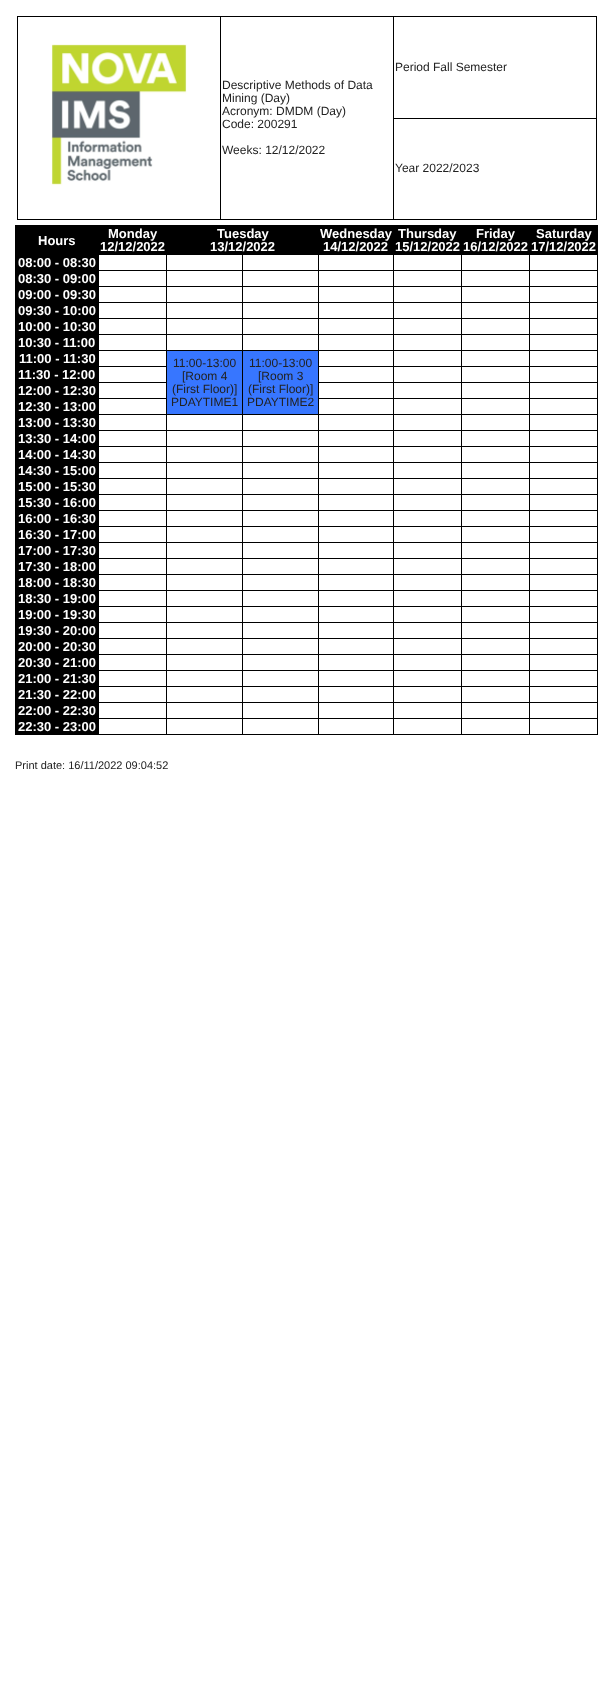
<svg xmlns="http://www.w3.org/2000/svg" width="613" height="1699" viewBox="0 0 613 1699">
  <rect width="100%" height="100%" fill="#fff"/>
  <path d="M393 16h204v1H393z" fill="#000"/>
  <path d="M393 118h204v1H393z" fill="#000"/>
  <path d="M596 118h1v102H596z" fill="#000"/>
  <path d="M393 219h204v1H393z" fill="#000"/>
  <path d="M393 118h1v102H393z" fill="#000"/>
  <path d="M393 16h1v103H393z" fill="#000"/>
  <path d="M220 16h174v1H220z" fill="#000"/>
  <path d="M220 219h174v1H220z" fill="#000"/>
  <path d="M220 16h1v204H220z" fill="#000"/>
  <path d="M17 16h204v1H17z" fill="#000"/>
  <path d="M17 219h204v1H17z" fill="#000"/>
  <path d="M17 16h1v204H17z" fill="#000"/>
  <image x="51" y="44" width="136" height="142" href="img/1.png"/>
  <path d="M596 16h1v103H596z" fill="#000"/>
  <path d="M16 226h83v28H16z" fill="#000"/>
  <path d="M15 225h583v1H15z" fill="#000"/>
  <path d="M15 254h84v1H15z" fill="#000"/>
  <path d="M529 270h69v1H529z" fill="#000"/>
  <path d="M529 286h69v1H529z" fill="#000"/>
  <path d="M529 302h69v1H529z" fill="#000"/>
  <path d="M529 318h69v1H529z" fill="#000"/>
  <path d="M529 334h69v1H529z" fill="#000"/>
  <path d="M529 350h69v1H529z" fill="#000"/>
  <path d="M529 366h69v1H529z" fill="#000"/>
  <path d="M529 382h69v1H529z" fill="#000"/>
  <path d="M529 398h69v1H529z" fill="#000"/>
  <path d="M529 414h69v1H529z" fill="#000"/>
  <path d="M529 430h69v1H529z" fill="#000"/>
  <path d="M529 446h69v1H529z" fill="#000"/>
  <path d="M529 462h69v1H529z" fill="#000"/>
  <path d="M529 478h69v1H529z" fill="#000"/>
  <path d="M529 494h69v1H529z" fill="#000"/>
  <path d="M529 510h69v1H529z" fill="#000"/>
  <path d="M529 526h69v1H529z" fill="#000"/>
  <path d="M529 542h69v1H529z" fill="#000"/>
  <path d="M529 558h69v1H529z" fill="#000"/>
  <path d="M529 574h69v1H529z" fill="#000"/>
  <path d="M529 590h69v1H529z" fill="#000"/>
  <path d="M529 606h69v1H529z" fill="#000"/>
  <path d="M529 622h69v1H529z" fill="#000"/>
  <path d="M529 638h69v1H529z" fill="#000"/>
  <path d="M529 654h69v1H529z" fill="#000"/>
  <path d="M529 670h69v1H529z" fill="#000"/>
  <path d="M529 686h69v1H529z" fill="#000"/>
  <path d="M529 702h69v1H529z" fill="#000"/>
  <path d="M529 718h69v1H529z" fill="#000"/>
  <path d="M597 718h1v17H597z" fill="#000"/>
  <path d="M529 734h69v1H529z" fill="#000"/>
  <path d="M529 718h1v17H529z" fill="#000"/>
  <path d="M461 718h69v1H461z" fill="#000"/>
  <path d="M529 702h1v17H529z" fill="#000"/>
  <path d="M461 702h69v1H461z" fill="#000"/>
  <path d="M529 686h1v17H529z" fill="#000"/>
  <path d="M461 686h69v1H461z" fill="#000"/>
  <path d="M529 670h1v17H529z" fill="#000"/>
  <path d="M461 670h69v1H461z" fill="#000"/>
  <path d="M529 654h1v17H529z" fill="#000"/>
  <path d="M461 654h69v1H461z" fill="#000"/>
  <path d="M529 638h1v17H529z" fill="#000"/>
  <path d="M461 638h69v1H461z" fill="#000"/>
  <path d="M529 622h1v17H529z" fill="#000"/>
  <path d="M461 622h69v1H461z" fill="#000"/>
  <path d="M529 606h1v17H529z" fill="#000"/>
  <path d="M461 606h69v1H461z" fill="#000"/>
  <path d="M529 590h1v17H529z" fill="#000"/>
  <path d="M461 590h69v1H461z" fill="#000"/>
  <path d="M529 574h1v17H529z" fill="#000"/>
  <path d="M461 574h69v1H461z" fill="#000"/>
  <path d="M529 558h1v17H529z" fill="#000"/>
  <path d="M461 558h69v1H461z" fill="#000"/>
  <path d="M529 542h1v17H529z" fill="#000"/>
  <path d="M461 542h69v1H461z" fill="#000"/>
  <path d="M529 526h1v17H529z" fill="#000"/>
  <path d="M461 526h69v1H461z" fill="#000"/>
  <path d="M529 510h1v17H529z" fill="#000"/>
  <path d="M461 510h69v1H461z" fill="#000"/>
  <path d="M529 494h1v17H529z" fill="#000"/>
  <path d="M461 494h69v1H461z" fill="#000"/>
  <path d="M529 478h1v17H529z" fill="#000"/>
  <path d="M461 478h69v1H461z" fill="#000"/>
  <path d="M529 462h1v17H529z" fill="#000"/>
  <path d="M461 462h69v1H461z" fill="#000"/>
  <path d="M529 446h1v17H529z" fill="#000"/>
  <path d="M461 446h69v1H461z" fill="#000"/>
  <path d="M529 430h1v17H529z" fill="#000"/>
  <path d="M461 430h69v1H461z" fill="#000"/>
  <path d="M529 414h1v17H529z" fill="#000"/>
  <path d="M461 414h69v1H461z" fill="#000"/>
  <path d="M529 398h1v17H529z" fill="#000"/>
  <path d="M461 398h69v1H461z" fill="#000"/>
  <path d="M529 382h1v17H529z" fill="#000"/>
  <path d="M461 382h69v1H461z" fill="#000"/>
  <path d="M529 366h1v17H529z" fill="#000"/>
  <path d="M461 366h69v1H461z" fill="#000"/>
  <path d="M529 350h1v17H529z" fill="#000"/>
  <path d="M461 350h69v1H461z" fill="#000"/>
  <path d="M529 334h1v17H529z" fill="#000"/>
  <path d="M461 334h69v1H461z" fill="#000"/>
  <path d="M529 318h1v17H529z" fill="#000"/>
  <path d="M461 318h69v1H461z" fill="#000"/>
  <path d="M529 302h1v17H529z" fill="#000"/>
  <path d="M461 302h69v1H461z" fill="#000"/>
  <path d="M529 286h1v17H529z" fill="#000"/>
  <path d="M461 286h69v1H461z" fill="#000"/>
  <path d="M529 270h1v17H529z" fill="#000"/>
  <path d="M461 270h69v1H461z" fill="#000"/>
  <path d="M461 734h69v1H461z" fill="#000"/>
  <path d="M461 718h1v17H461z" fill="#000"/>
  <path d="M393 718h69v1H393z" fill="#000"/>
  <path d="M461 702h1v17H461z" fill="#000"/>
  <path d="M393 702h69v1H393z" fill="#000"/>
  <path d="M461 686h1v17H461z" fill="#000"/>
  <path d="M393 686h69v1H393z" fill="#000"/>
  <path d="M461 670h1v17H461z" fill="#000"/>
  <path d="M393 670h69v1H393z" fill="#000"/>
  <path d="M461 654h1v17H461z" fill="#000"/>
  <path d="M393 654h69v1H393z" fill="#000"/>
  <path d="M461 638h1v17H461z" fill="#000"/>
  <path d="M393 638h69v1H393z" fill="#000"/>
  <path d="M461 622h1v17H461z" fill="#000"/>
  <path d="M393 622h69v1H393z" fill="#000"/>
  <path d="M461 606h1v17H461z" fill="#000"/>
  <path d="M393 606h69v1H393z" fill="#000"/>
  <path d="M461 590h1v17H461z" fill="#000"/>
  <path d="M393 590h69v1H393z" fill="#000"/>
  <path d="M461 574h1v17H461z" fill="#000"/>
  <path d="M393 574h69v1H393z" fill="#000"/>
  <path d="M461 558h1v17H461z" fill="#000"/>
  <path d="M393 558h69v1H393z" fill="#000"/>
  <path d="M461 542h1v17H461z" fill="#000"/>
  <path d="M393 542h69v1H393z" fill="#000"/>
  <path d="M461 526h1v17H461z" fill="#000"/>
  <path d="M393 526h69v1H393z" fill="#000"/>
  <path d="M461 510h1v17H461z" fill="#000"/>
  <path d="M393 510h69v1H393z" fill="#000"/>
  <path d="M461 494h1v17H461z" fill="#000"/>
  <path d="M393 494h69v1H393z" fill="#000"/>
  <path d="M461 478h1v17H461z" fill="#000"/>
  <path d="M393 478h69v1H393z" fill="#000"/>
  <path d="M461 462h1v17H461z" fill="#000"/>
  <path d="M393 462h69v1H393z" fill="#000"/>
  <path d="M461 446h1v17H461z" fill="#000"/>
  <path d="M393 446h69v1H393z" fill="#000"/>
  <path d="M461 430h1v17H461z" fill="#000"/>
  <path d="M393 430h69v1H393z" fill="#000"/>
  <path d="M461 414h1v17H461z" fill="#000"/>
  <path d="M393 414h69v1H393z" fill="#000"/>
  <path d="M461 398h1v17H461z" fill="#000"/>
  <path d="M393 398h69v1H393z" fill="#000"/>
  <path d="M461 382h1v17H461z" fill="#000"/>
  <path d="M393 382h69v1H393z" fill="#000"/>
  <path d="M461 366h1v17H461z" fill="#000"/>
  <path d="M393 366h69v1H393z" fill="#000"/>
  <path d="M461 350h1v17H461z" fill="#000"/>
  <path d="M393 350h69v1H393z" fill="#000"/>
  <path d="M461 334h1v17H461z" fill="#000"/>
  <path d="M393 334h69v1H393z" fill="#000"/>
  <path d="M461 318h1v17H461z" fill="#000"/>
  <path d="M393 318h69v1H393z" fill="#000"/>
  <path d="M461 302h1v17H461z" fill="#000"/>
  <path d="M393 302h69v1H393z" fill="#000"/>
  <path d="M461 286h1v17H461z" fill="#000"/>
  <path d="M393 286h69v1H393z" fill="#000"/>
  <path d="M461 270h1v17H461z" fill="#000"/>
  <path d="M393 270h69v1H393z" fill="#000"/>
  <path d="M393 734h69v1H393z" fill="#000"/>
  <path d="M393 718h1v17H393z" fill="#000"/>
  <path d="M318 718h76v1H318z" fill="#000"/>
  <path d="M393 702h1v17H393z" fill="#000"/>
  <path d="M318 702h76v1H318z" fill="#000"/>
  <path d="M393 686h1v17H393z" fill="#000"/>
  <path d="M318 686h76v1H318z" fill="#000"/>
  <path d="M393 670h1v17H393z" fill="#000"/>
  <path d="M318 670h76v1H318z" fill="#000"/>
  <path d="M393 654h1v17H393z" fill="#000"/>
  <path d="M318 654h76v1H318z" fill="#000"/>
  <path d="M393 638h1v17H393z" fill="#000"/>
  <path d="M318 638h76v1H318z" fill="#000"/>
  <path d="M393 622h1v17H393z" fill="#000"/>
  <path d="M318 622h76v1H318z" fill="#000"/>
  <path d="M393 606h1v17H393z" fill="#000"/>
  <path d="M318 606h76v1H318z" fill="#000"/>
  <path d="M393 590h1v17H393z" fill="#000"/>
  <path d="M318 590h76v1H318z" fill="#000"/>
  <path d="M393 574h1v17H393z" fill="#000"/>
  <path d="M318 574h76v1H318z" fill="#000"/>
  <path d="M393 558h1v17H393z" fill="#000"/>
  <path d="M318 558h76v1H318z" fill="#000"/>
  <path d="M393 542h1v17H393z" fill="#000"/>
  <path d="M318 542h76v1H318z" fill="#000"/>
  <path d="M393 526h1v17H393z" fill="#000"/>
  <path d="M318 526h76v1H318z" fill="#000"/>
  <path d="M393 510h1v17H393z" fill="#000"/>
  <path d="M318 510h76v1H318z" fill="#000"/>
  <path d="M393 494h1v17H393z" fill="#000"/>
  <path d="M318 494h76v1H318z" fill="#000"/>
  <path d="M393 478h1v17H393z" fill="#000"/>
  <path d="M318 478h76v1H318z" fill="#000"/>
  <path d="M393 462h1v17H393z" fill="#000"/>
  <path d="M318 462h76v1H318z" fill="#000"/>
  <path d="M393 446h1v17H393z" fill="#000"/>
  <path d="M318 446h76v1H318z" fill="#000"/>
  <path d="M393 430h1v17H393z" fill="#000"/>
  <path d="M318 430h76v1H318z" fill="#000"/>
  <path d="M393 414h1v17H393z" fill="#000"/>
  <path d="M318 414h76v1H318z" fill="#000"/>
  <path d="M393 398h1v17H393z" fill="#000"/>
  <path d="M318 398h76v1H318z" fill="#000"/>
  <path d="M393 382h1v17H393z" fill="#000"/>
  <path d="M318 382h76v1H318z" fill="#000"/>
  <path d="M393 366h1v17H393z" fill="#000"/>
  <path d="M318 366h76v1H318z" fill="#000"/>
  <path d="M393 350h1v17H393z" fill="#000"/>
  <path d="M318 350h76v1H318z" fill="#000"/>
  <path d="M393 334h1v17H393z" fill="#000"/>
  <path d="M318 334h76v1H318z" fill="#000"/>
  <path d="M393 318h1v17H393z" fill="#000"/>
  <path d="M318 318h76v1H318z" fill="#000"/>
  <path d="M393 302h1v17H393z" fill="#000"/>
  <path d="M318 302h76v1H318z" fill="#000"/>
  <path d="M393 286h1v17H393z" fill="#000"/>
  <path d="M318 286h76v1H318z" fill="#000"/>
  <path d="M393 270h1v17H393z" fill="#000"/>
  <path d="M318 270h76v1H318z" fill="#000"/>
  <path d="M318 734h76v1H318z" fill="#000"/>
  <path d="M318 718h1v17H318z" fill="#000"/>
  <path d="M242 718h77v1H242z" fill="#000"/>
  <path d="M318 702h1v17H318z" fill="#000"/>
  <path d="M242 702h77v1H242z" fill="#000"/>
  <path d="M318 686h1v17H318z" fill="#000"/>
  <path d="M242 686h77v1H242z" fill="#000"/>
  <path d="M318 670h1v17H318z" fill="#000"/>
  <path d="M242 670h77v1H242z" fill="#000"/>
  <path d="M318 654h1v17H318z" fill="#000"/>
  <path d="M242 654h77v1H242z" fill="#000"/>
  <path d="M318 638h1v17H318z" fill="#000"/>
  <path d="M242 638h77v1H242z" fill="#000"/>
  <path d="M318 622h1v17H318z" fill="#000"/>
  <path d="M242 622h77v1H242z" fill="#000"/>
  <path d="M318 606h1v17H318z" fill="#000"/>
  <path d="M242 606h77v1H242z" fill="#000"/>
  <path d="M318 590h1v17H318z" fill="#000"/>
  <path d="M242 590h77v1H242z" fill="#000"/>
  <path d="M318 574h1v17H318z" fill="#000"/>
  <path d="M242 574h77v1H242z" fill="#000"/>
  <path d="M318 558h1v17H318z" fill="#000"/>
  <path d="M242 558h77v1H242z" fill="#000"/>
  <path d="M318 542h1v17H318z" fill="#000"/>
  <path d="M242 542h77v1H242z" fill="#000"/>
  <path d="M318 526h1v17H318z" fill="#000"/>
  <path d="M242 526h77v1H242z" fill="#000"/>
  <path d="M318 510h1v17H318z" fill="#000"/>
  <path d="M242 510h77v1H242z" fill="#000"/>
  <path d="M318 494h1v17H318z" fill="#000"/>
  <path d="M242 494h77v1H242z" fill="#000"/>
  <path d="M318 478h1v17H318z" fill="#000"/>
  <path d="M242 478h77v1H242z" fill="#000"/>
  <path d="M318 462h1v17H318z" fill="#000"/>
  <path d="M242 462h77v1H242z" fill="#000"/>
  <path d="M318 446h1v17H318z" fill="#000"/>
  <path d="M242 446h77v1H242z" fill="#000"/>
  <path d="M318 430h1v17H318z" fill="#000"/>
  <path d="M242 430h77v1H242z" fill="#000"/>
  <path d="M318 414h1v17H318z" fill="#000"/>
  <path d="M242 414h77v1H242z" fill="#000"/>
  <path d="M318 398h1v17H318z" fill="#000"/>
  <path d="M318 382h1v17H318z" fill="#000"/>
  <path d="M318 366h1v17H318z" fill="#000"/>
  <path d="M318 350h1v17H318z" fill="#000"/>
  <path d="M242 350h77v1H242z" fill="#000"/>
  <path d="M318 334h1v17H318z" fill="#000"/>
  <path d="M242 334h77v1H242z" fill="#000"/>
  <path d="M318 318h1v17H318z" fill="#000"/>
  <path d="M242 318h77v1H242z" fill="#000"/>
  <path d="M318 302h1v17H318z" fill="#000"/>
  <path d="M242 302h77v1H242z" fill="#000"/>
  <path d="M318 286h1v17H318z" fill="#000"/>
  <path d="M242 286h77v1H242z" fill="#000"/>
  <path d="M318 270h1v17H318z" fill="#000"/>
  <path d="M242 270h77v1H242z" fill="#000"/>
  <path d="M242 734h77v1H242z" fill="#000"/>
  <path d="M242 718h1v17H242z" fill="#000"/>
  <path d="M166 718h77v1H166z" fill="#000"/>
  <path d="M242 702h1v17H242z" fill="#000"/>
  <path d="M166 702h77v1H166z" fill="#000"/>
  <path d="M242 686h1v17H242z" fill="#000"/>
  <path d="M166 686h77v1H166z" fill="#000"/>
  <path d="M242 670h1v17H242z" fill="#000"/>
  <path d="M166 670h77v1H166z" fill="#000"/>
  <path d="M242 654h1v17H242z" fill="#000"/>
  <path d="M166 654h77v1H166z" fill="#000"/>
  <path d="M242 638h1v17H242z" fill="#000"/>
  <path d="M166 638h77v1H166z" fill="#000"/>
  <path d="M242 622h1v17H242z" fill="#000"/>
  <path d="M166 622h77v1H166z" fill="#000"/>
  <path d="M242 606h1v17H242z" fill="#000"/>
  <path d="M166 606h77v1H166z" fill="#000"/>
  <path d="M242 590h1v17H242z" fill="#000"/>
  <path d="M166 590h77v1H166z" fill="#000"/>
  <path d="M242 574h1v17H242z" fill="#000"/>
  <path d="M166 574h77v1H166z" fill="#000"/>
  <path d="M242 558h1v17H242z" fill="#000"/>
  <path d="M166 558h77v1H166z" fill="#000"/>
  <path d="M242 542h1v17H242z" fill="#000"/>
  <path d="M166 542h77v1H166z" fill="#000"/>
  <path d="M242 526h1v17H242z" fill="#000"/>
  <path d="M166 526h77v1H166z" fill="#000"/>
  <path d="M242 510h1v17H242z" fill="#000"/>
  <path d="M166 510h77v1H166z" fill="#000"/>
  <path d="M242 494h1v17H242z" fill="#000"/>
  <path d="M166 494h77v1H166z" fill="#000"/>
  <path d="M242 478h1v17H242z" fill="#000"/>
  <path d="M166 478h77v1H166z" fill="#000"/>
  <path d="M242 462h1v17H242z" fill="#000"/>
  <path d="M166 462h77v1H166z" fill="#000"/>
  <path d="M242 446h1v17H242z" fill="#000"/>
  <path d="M166 446h77v1H166z" fill="#000"/>
  <path d="M242 430h1v17H242z" fill="#000"/>
  <path d="M166 430h77v1H166z" fill="#000"/>
  <path d="M242 414h1v17H242z" fill="#000"/>
  <path d="M166 414h77v1H166z" fill="#000"/>
  <path d="M242 350h1v65H242z" fill="#000"/>
  <path d="M166 350h77v1H166z" fill="#000"/>
  <path d="M242 334h1v17H242z" fill="#000"/>
  <path d="M166 334h77v1H166z" fill="#000"/>
  <path d="M242 318h1v17H242z" fill="#000"/>
  <path d="M166 318h77v1H166z" fill="#000"/>
  <path d="M242 302h1v17H242z" fill="#000"/>
  <path d="M166 302h77v1H166z" fill="#000"/>
  <path d="M242 286h1v17H242z" fill="#000"/>
  <path d="M166 286h77v1H166z" fill="#000"/>
  <path d="M242 270h1v17H242z" fill="#000"/>
  <path d="M166 270h77v1H166z" fill="#000"/>
  <path d="M15 366h152v1H15z" fill="#000"/>
  <path d="M15 382h152v1H15z" fill="#000"/>
  <path d="M15 398h152v1H15z" fill="#000"/>
  <path d="M166 734h77v1H166z" fill="#000"/>
  <path d="M166 718h1v17H166z" fill="#000"/>
  <path d="M15 718h152v1H15z" fill="#000"/>
  <path d="M166 702h1v17H166z" fill="#000"/>
  <path d="M15 702h152v1H15z" fill="#000"/>
  <path d="M166 686h1v17H166z" fill="#000"/>
  <path d="M15 686h152v1H15z" fill="#000"/>
  <path d="M166 670h1v17H166z" fill="#000"/>
  <path d="M15 670h152v1H15z" fill="#000"/>
  <path d="M166 654h1v17H166z" fill="#000"/>
  <path d="M15 654h152v1H15z" fill="#000"/>
  <path d="M166 638h1v17H166z" fill="#000"/>
  <path d="M15 638h152v1H15z" fill="#000"/>
  <path d="M166 622h1v17H166z" fill="#000"/>
  <path d="M15 622h152v1H15z" fill="#000"/>
  <path d="M166 606h1v17H166z" fill="#000"/>
  <path d="M15 606h152v1H15z" fill="#000"/>
  <path d="M166 590h1v17H166z" fill="#000"/>
  <path d="M15 590h152v1H15z" fill="#000"/>
  <path d="M166 574h1v17H166z" fill="#000"/>
  <path d="M15 574h152v1H15z" fill="#000"/>
  <path d="M166 558h1v17H166z" fill="#000"/>
  <path d="M15 558h152v1H15z" fill="#000"/>
  <path d="M166 542h1v17H166z" fill="#000"/>
  <path d="M15 542h152v1H15z" fill="#000"/>
  <path d="M166 526h1v17H166z" fill="#000"/>
  <path d="M15 526h152v1H15z" fill="#000"/>
  <path d="M166 510h1v17H166z" fill="#000"/>
  <path d="M15 510h152v1H15z" fill="#000"/>
  <path d="M166 494h1v17H166z" fill="#000"/>
  <path d="M15 494h152v1H15z" fill="#000"/>
  <path d="M166 478h1v17H166z" fill="#000"/>
  <path d="M15 478h152v1H15z" fill="#000"/>
  <path d="M166 462h1v17H166z" fill="#000"/>
  <path d="M15 462h152v1H15z" fill="#000"/>
  <path d="M166 446h1v17H166z" fill="#000"/>
  <path d="M15 446h152v1H15z" fill="#000"/>
  <path d="M166 430h1v17H166z" fill="#000"/>
  <path d="M15 430h152v1H15z" fill="#000"/>
  <path d="M166 414h1v17H166z" fill="#000"/>
  <path d="M15 414h152v1H15z" fill="#000"/>
  <path d="M166 350h1v65H166z" fill="#000"/>
  <path d="M15 350h152v1H15z" fill="#000"/>
  <path d="M166 334h1v17H166z" fill="#000"/>
  <path d="M15 334h152v1H15z" fill="#000"/>
  <path d="M166 318h1v17H166z" fill="#000"/>
  <path d="M15 318h152v1H15z" fill="#000"/>
  <path d="M166 302h1v17H166z" fill="#000"/>
  <path d="M15 302h152v1H15z" fill="#000"/>
  <path d="M166 286h1v17H166z" fill="#000"/>
  <path d="M15 286h152v1H15z" fill="#000"/>
  <path d="M166 270h1v17H166z" fill="#000"/>
  <path d="M15 270h152v1H15z" fill="#000"/>
  <path d="M15 734h152v1H15z" fill="#000"/>
  <path d="M15 718h1v17H15z" fill="#000"/>
  <path d="M15 702h1v17H15z" fill="#000"/>
  <path d="M15 686h1v17H15z" fill="#000"/>
  <path d="M15 670h1v17H15z" fill="#000"/>
  <path d="M15 654h1v17H15z" fill="#000"/>
  <path d="M15 638h1v17H15z" fill="#000"/>
  <path d="M15 622h1v17H15z" fill="#000"/>
  <path d="M15 606h1v17H15z" fill="#000"/>
  <path d="M15 590h1v17H15z" fill="#000"/>
  <path d="M15 574h1v17H15z" fill="#000"/>
  <path d="M15 558h1v17H15z" fill="#000"/>
  <path d="M15 542h1v17H15z" fill="#000"/>
  <path d="M15 526h1v17H15z" fill="#000"/>
  <path d="M15 510h1v17H15z" fill="#000"/>
  <path d="M15 494h1v17H15z" fill="#000"/>
  <path d="M15 478h1v17H15z" fill="#000"/>
  <path d="M15 462h1v17H15z" fill="#000"/>
  <path d="M15 446h1v17H15z" fill="#000"/>
  <path d="M15 430h1v17H15z" fill="#000"/>
  <path d="M15 414h1v17H15z" fill="#000"/>
  <path d="M15 398h1v17H15z" fill="#000"/>
  <path d="M15 382h1v17H15z" fill="#000"/>
  <path d="M15 366h1v17H15z" fill="#000"/>
  <path d="M15 350h1v17H15z" fill="#000"/>
  <path d="M15 334h1v17H15z" fill="#000"/>
  <path d="M15 318h1v17H15z" fill="#000"/>
  <path d="M15 302h1v17H15z" fill="#000"/>
  <path d="M15 286h1v17H15z" fill="#000"/>
  <path d="M15 270h1v17H15z" fill="#000"/>
  <path d="M15 254h1v17H15z" fill="#000"/>
  <path d="M15 225h1v30H15z" fill="#000"/>
  <path d="M99 226h499v29H99z" fill="#000"/>
  <path d="M16 255h83v15H16z" fill="#000"/>
  <path d="M166 254h1v17H166z" fill="#000"/>
  <path d="M242 254h1v17H242z" fill="#000"/>
  <path d="M318 254h1v17H318z" fill="#000"/>
  <path d="M393 254h1v17H393z" fill="#000"/>
  <path d="M461 254h1v17H461z" fill="#000"/>
  <path d="M529 254h1v17H529z" fill="#000"/>
  <path d="M597 702h1v17H597z" fill="#000"/>
  <path d="M597 686h1v17H597z" fill="#000"/>
  <path d="M597 670h1v17H597z" fill="#000"/>
  <path d="M597 654h1v17H597z" fill="#000"/>
  <path d="M597 638h1v17H597z" fill="#000"/>
  <path d="M597 622h1v17H597z" fill="#000"/>
  <path d="M597 606h1v17H597z" fill="#000"/>
  <path d="M597 590h1v17H597z" fill="#000"/>
  <path d="M597 574h1v17H597z" fill="#000"/>
  <path d="M597 558h1v17H597z" fill="#000"/>
  <path d="M597 542h1v17H597z" fill="#000"/>
  <path d="M597 526h1v17H597z" fill="#000"/>
  <path d="M597 510h1v17H597z" fill="#000"/>
  <path d="M597 494h1v17H597z" fill="#000"/>
  <path d="M597 478h1v17H597z" fill="#000"/>
  <path d="M597 462h1v17H597z" fill="#000"/>
  <path d="M597 446h1v17H597z" fill="#000"/>
  <path d="M597 430h1v17H597z" fill="#000"/>
  <path d="M597 414h1v17H597z" fill="#000"/>
  <path d="M597 398h1v17H597z" fill="#000"/>
  <path d="M597 382h1v17H597z" fill="#000"/>
  <path d="M597 366h1v17H597z" fill="#000"/>
  <path d="M597 350h1v17H597z" fill="#000"/>
  <path d="M597 334h1v17H597z" fill="#000"/>
  <path d="M597 318h1v17H597z" fill="#000"/>
  <path d="M597 302h1v17H597z" fill="#000"/>
  <path d="M597 286h1v17H597z" fill="#000"/>
  <path d="M597 254h1v33H597z" fill="#000"/>
  <path d="M16 271h83v15H16z" fill="#000"/>
  <path d="M16 287h83v15H16z" fill="#000"/>
  <path d="M16 303h83v15H16z" fill="#000"/>
  <path d="M16 319h83v15H16z" fill="#000"/>
  <path d="M16 335h83v15H16z" fill="#000"/>
  <path d="M16 351h83v15H16z" fill="#000"/>
  <path d="M167 351h75v63H167z" fill="#3776ff"/>
  <path d="M243 351h75v63H243z" fill="#3776ff"/>
  <path d="M16 367h83v15H16z" fill="#000"/>
  <path d="M16 383h83v15H16z" fill="#000"/>
  <path d="M16 399h83v15H16z" fill="#000"/>
  <path d="M16 415h83v15H16z" fill="#000"/>
  <path d="M16 431h83v15H16z" fill="#000"/>
  <path d="M16 447h83v15H16z" fill="#000"/>
  <path d="M16 463h83v15H16z" fill="#000"/>
  <path d="M16 479h83v15H16z" fill="#000"/>
  <path d="M16 495h83v15H16z" fill="#000"/>
  <path d="M16 511h83v15H16z" fill="#000"/>
  <path d="M16 527h83v15H16z" fill="#000"/>
  <path d="M16 543h83v15H16z" fill="#000"/>
  <path d="M16 559h83v15H16z" fill="#000"/>
  <path d="M16 575h83v15H16z" fill="#000"/>
  <path d="M16 591h83v15H16z" fill="#000"/>
  <path d="M16 607h83v15H16z" fill="#000"/>
  <path d="M16 623h83v15H16z" fill="#000"/>
  <path d="M16 639h83v15H16z" fill="#000"/>
  <path d="M16 655h83v15H16z" fill="#000"/>
  <path d="M16 671h83v15H16z" fill="#000"/>
  <path d="M16 687h83v15H16z" fill="#000"/>
  <path d="M16 703h83v15H16z" fill="#000"/>
  <path d="M16 719h83v15H16z" fill="#000"/>
  <g font-family="Liberation Sans" font-size="12" fill="#222">
    <text x="395" y="71">Period Fall Semester</text>
    <text x="222" y="89">Descriptive Methods of Data</text>
    <text x="222" y="102">Mining (Day)</text>
    <text x="222" y="115">Acronym: DMDM (Day)</text>
    <text x="222" y="128">Code: 200291</text>
    <text x="222" y="154">Weeks: 12/12/2022</text>
    <text x="395" y="172">Year 2022/2023</text>
  </g>
  <g font-family="Liberation Sans" font-size="13" font-weight="bold" fill="#fff">
    <text x="38" y="245">Hours</text>
    <text x="108" y="238">Monday</text>
    <text x="100" y="251">12/12/2022</text>
    <text x="217" y="238">Tuesday</text>
    <text x="210" y="251">13/12/2022</text>
    <text x="320" y="238">Wednesday</text>
    <text x="323" y="251">14/12/2022</text>
    <text x="398" y="238">Thursday</text>
    <text x="395" y="251">15/12/2022</text>
    <text x="476" y="238">Friday</text>
    <text x="463" y="251">16/12/2022</text>
    <text x="536" y="238">Saturday</text>
    <text x="531" y="251">17/12/2022</text>
    <text x="18" y="267">08:00 - 08:30</text>
    <text x="18" y="283">08:30 - 09:00</text>
    <text x="18" y="299">09:00 - 09:30</text>
    <text x="18" y="315">09:30 - 10:00</text>
    <text x="18" y="331">10:00 - 10:30</text>
    <text x="18" y="347">10:30 - 11:00</text>
    <text x="19" y="363">11:00 - 11:30</text>
  </g>
  <g font-family="Liberation Sans" font-size="12" fill="#222">
    <text x="173" y="367">11:00-13:00</text>
    <text x="182" y="380">[Room 4</text>
    <text x="172" y="393">(First Floor)]</text>
    <text x="171" y="406">PDAYTIME1</text>
    <text x="249" y="367">11:00-13:00</text>
    <text x="258" y="380">[Room 3</text>
    <text x="248" y="393">(First Floor)]</text>
    <text x="247" y="406">PDAYTIME2</text>
  </g>
  <g font-family="Liberation Sans" font-size="13" font-weight="bold" fill="#fff">
    <text x="18" y="379">11:30 - 12:00</text>
    <text x="18" y="395">12:00 - 12:30</text>
    <text x="18" y="411">12:30 - 13:00</text>
    <text x="18" y="427">13:00 - 13:30</text>
    <text x="18" y="443">13:30 - 14:00</text>
    <text x="18" y="459">14:00 - 14:30</text>
    <text x="18" y="475">14:30 - 15:00</text>
    <text x="18" y="491">15:00 - 15:30</text>
    <text x="18" y="507">15:30 - 16:00</text>
    <text x="18" y="523">16:00 - 16:30</text>
    <text x="18" y="539">16:30 - 17:00</text>
    <text x="18" y="555">17:00 - 17:30</text>
    <text x="18" y="571">17:30 - 18:00</text>
    <text x="18" y="587">18:00 - 18:30</text>
    <text x="18" y="603">18:30 - 19:00</text>
    <text x="18" y="619">19:00 - 19:30</text>
    <text x="18" y="635">19:30 - 20:00</text>
    <text x="18" y="651">20:00 - 20:30</text>
    <text x="18" y="667">20:30 - 21:00</text>
    <text x="18" y="683">21:00 - 21:30</text>
    <text x="18" y="699">21:30 - 22:00</text>
    <text x="18" y="715">22:00 - 22:30</text>
    <text x="18" y="731">22:30 - 23:00</text>
  </g>
  <text x="15" y="769" font-family="Liberation Sans" font-size="11" fill="#222">Print date: 16/11/2022 09:04:52</text>
</svg>
